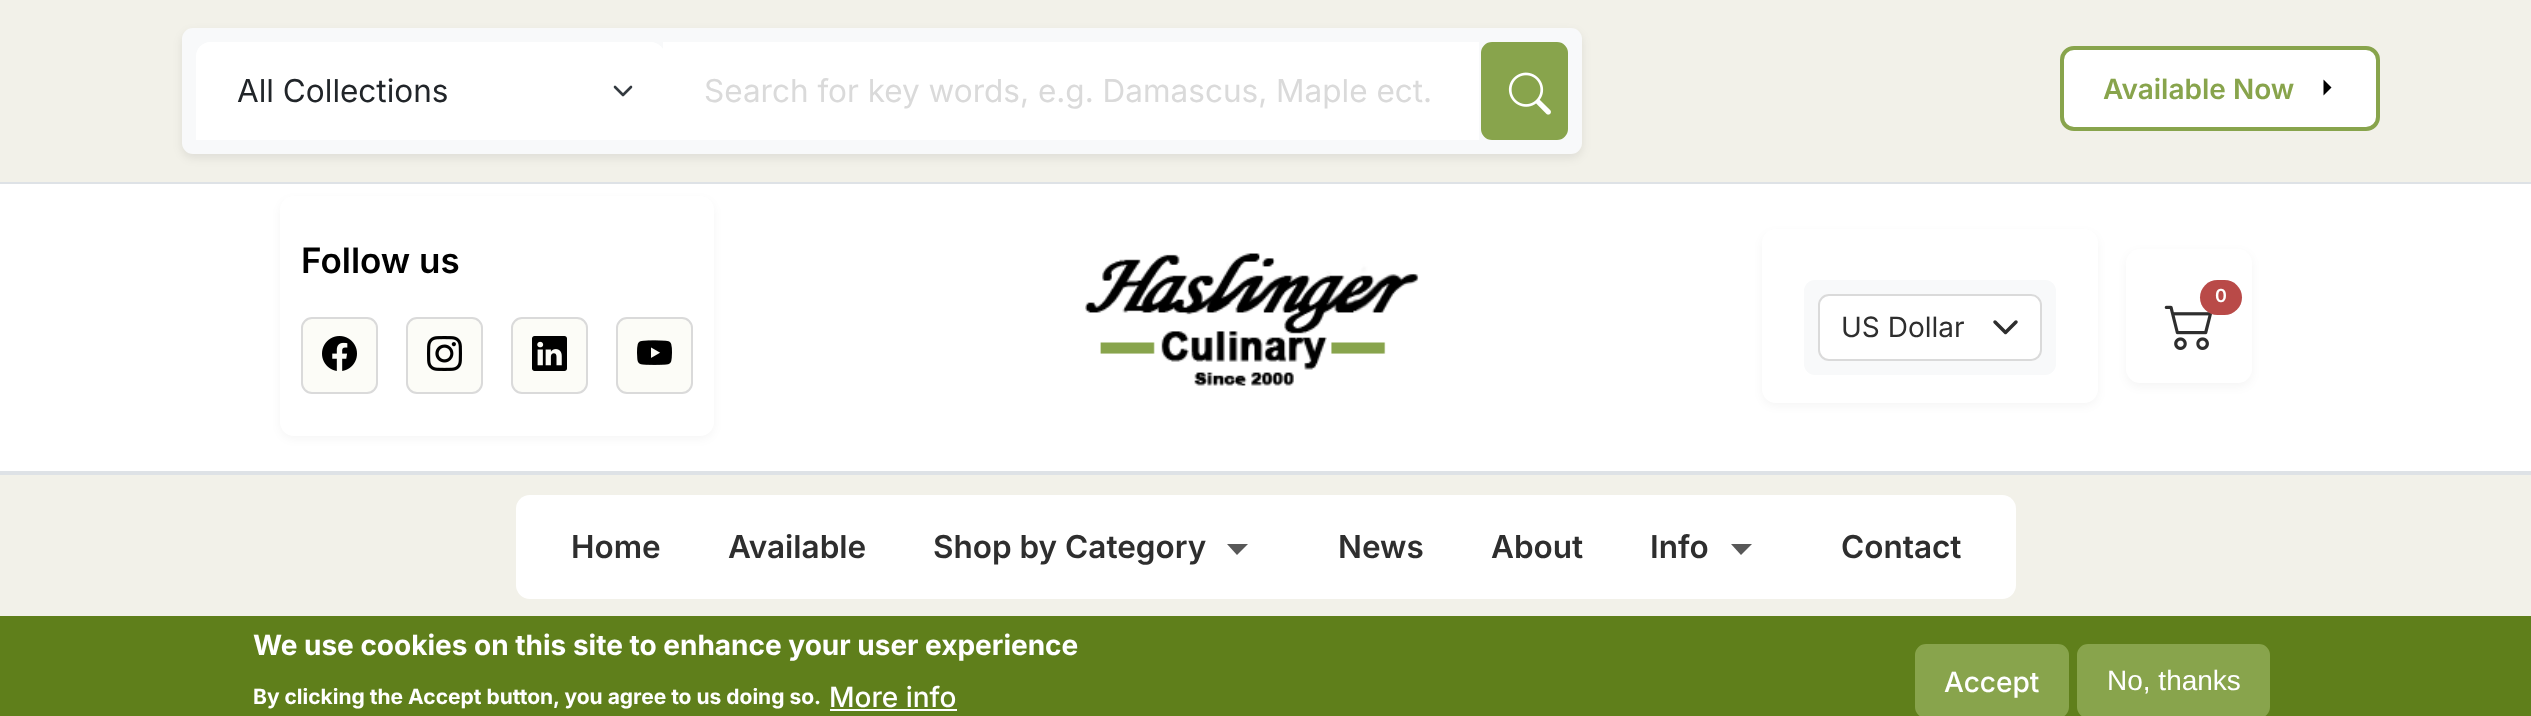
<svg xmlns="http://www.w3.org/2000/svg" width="2531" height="716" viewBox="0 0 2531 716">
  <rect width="100%" height="100%" fill="#fff"/>
  <path d="M0 0h2531v182H0z" fill="#f2f1e9"/>
  <path d="M0 182h2531v2H0z" fill="#dee2e6"/>
  <rect x="182" y="32" width="1400" height="126" rx="11" fill="#00000014" filter="blur(5px)"/>
  <rect x="182" y="28" width="1400" height="126" rx="11" fill="#f8f9fa"/>
  <path d="M210 42H651C658.5 42 665 48.5 665 56V140H196V56C196 48.5 202.5 42 210 42Z" fill="#fff"/>
  <path d="M615 87L623 95L631 87" fill="none" stroke="#343a40" stroke-width="2.6" stroke-linecap="round" stroke-linejoin="round"/>
  <path d="M663 42h816v98H663z" fill="#fff"/>
  <rect x="1482" y="43" width="85" height="96" rx="10" fill="#88a44c" stroke="#88a44c" stroke-width="2"/>
  <image x="1508" y="72" width="43" height="43" href="img/1.png"/>
  <rect x="2062" y="48" width="316" height="81" rx="12" fill="#fff" stroke="#88a44c" stroke-width="4"/>
  <path d="M2323.5 79.5L2331.5 87.5L2323.5 95.5M2314 87.5H2330.5" fill="#000"/>
  <path d="M0 471h2531v4H0z" fill="#dee2e6"/>
  <rect x="280" y="200" width="434" height="239" rx="14" fill="#0000000a" filter="blur(5px)"/>
  <rect x="280" y="196" width="434" height="240" rx="14" fill="#fff"/>
  <rect x="302" y="318" width="75" height="75" rx="10" fill="#fcfcf7" stroke="#dadada" stroke-width="2"/>
  <image x="322" y="336" width="35" height="35" href="img/2.png"/>
  <rect x="407" y="318" width="75" height="75" rx="10" fill="#fcfcf7" stroke="#dadada" stroke-width="2"/>
  <image x="427" y="336" width="35" height="35" href="img/3.png"/>
  <rect x="512" y="318" width="75" height="75" rx="10" fill="#fcfcf7" stroke="#dadada" stroke-width="2"/>
  <image x="532" y="336" width="35" height="35" href="img/4.png"/>
  <rect x="617" y="318" width="75" height="75" rx="10" fill="#fcfcf7" stroke="#dadada" stroke-width="2"/>
  <image x="637" y="340" width="35" height="25" href="img/5.png"/>
  <image x="1085" y="253" width="334" height="133" href="img/6.png"/>
  <rect x="2126" y="252" width="126" height="135" rx="14" fill="#0000000a" filter="blur(5px)"/>
  <rect x="2126" y="249" width="126" height="134" rx="14" fill="#fff"/>
  <image x="2164" y="305" width="48" height="45" href="img/7.png"/>
  <rect x="2200" y="280" width="42" height="35" rx="17.5" fill="#b94a48"/>
  <rect x="1762" y="233" width="336" height="173" rx="14" fill="#0000000a" filter="blur(5px)"/>
  <rect x="1762" y="229" width="336" height="174" rx="14" fill="#fff"/>
  <rect x="1804" y="280" width="252" height="95" rx="11" fill="#f8f9fa"/>
  <rect x="1818" y="294" width="224" height="67" rx="11" fill="#fff"/>
  <path d="M1995 322L2005.5 332.5L2016 322" fill="none" stroke="#2e2e2e" stroke-width="3.5" stroke-linecap="round" stroke-linejoin="round"/>
  <rect x="1819" y="295" width="222" height="65" rx="10" fill="none" stroke="#dadada" stroke-width="2"/>
  <path d="M0 475h2531v141H0z" fill="#f2f1e9"/>
  <rect x="516" y="495" width="1500" height="104" rx="14" fill="#fff"/>
  <path d="M1227 544H1248L1237 555Z" fill="#585858"/>
  <path d="M1731 544H1752L1741 555Z" fill="#585858"/>
  <path d="M0 616h2531v100H0z" fill="#5f7f1b"/>
  <path d="M830 709h127v2H830z" fill="#fff"/>
  <rect x="1916" y="645" width="152" height="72" rx="10" fill="#88a44c" stroke="#88a44c" stroke-width="2"/>
  <rect x="2078" y="645" width="191" height="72" rx="10" fill="#88a44c" stroke="#88a44c" stroke-width="2"/>
  <text x="237" y="102" font-family="Inter" font-size="31.5" fill="#212529">All Collections</text>
  <text x="704" y="102" font-family="Inter" font-size="31.5" fill="#dadada">Search for key words, e.g. Damascus, Maple ect.</text>
  <text x="2103" y="99" font-family="Inter" font-size="28" font-weight="600" fill="#88a44c">Available Now</text>
  <text x="301" y="273" font-family="Inter" font-size="35" font-weight="600" fill="#000">Follow us</text>
  <text x="2215" y="302" font-family="Inter" font-size="18" font-weight="600" fill="#fff">0</text>
  <text x="1841" y="337" font-family="Inter" font-size="28" fill="#2e2e2e">US Dollar</text>
  <g font-family="Inter" font-size="31.5" font-weight="600" fill="#2e2e2e">
    <text x="571" y="558">Home</text>
    <text x="728" y="558">Available</text>
    <text x="933" y="558">Shop by Category</text>
    <text x="1338" y="558">News</text>
    <text x="1491" y="558">About</text>
    <text x="1650" y="558">Info</text>
    <text x="1841" y="558">Contact</text>
  </g>
  <text x="253" y="655" font-family="Inter" font-size="28" font-weight="bold" fill="#fff">We use cookies on this site to enhance your user experience</text>
  <text x="253" y="704" font-family="Inter" font-size="21" font-weight="bold" fill="#fff">By clicking the Accept button, you agree to us doing so.</text>
  <g font-family="Inter" font-size="28" font-weight="500" fill="#fff">
    <text x="829" y="707">More info</text>
    <text x="1944" y="692">Accept</text>
  </g>
  <text x="2107" y="690" font-family="Liberation Sans" font-size="28" fill="#fff">No, thanks</text>
</svg>
